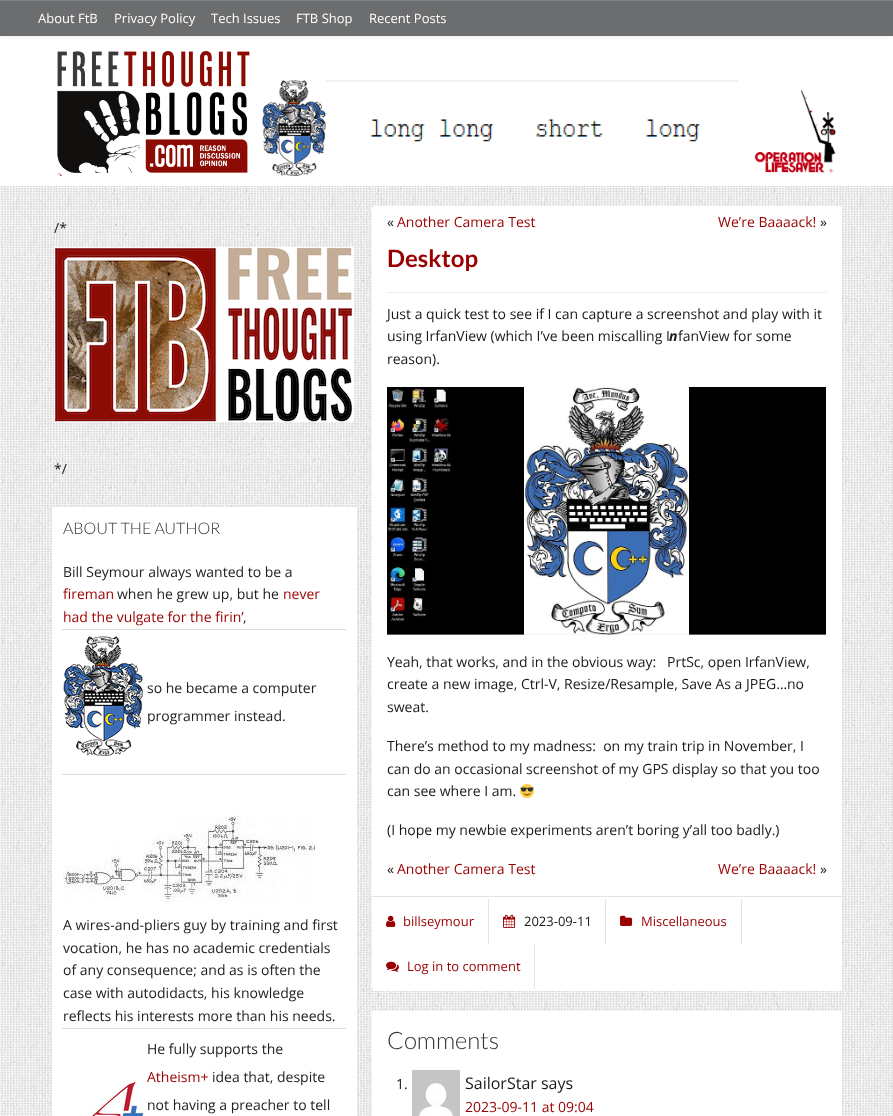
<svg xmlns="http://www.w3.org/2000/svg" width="893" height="1116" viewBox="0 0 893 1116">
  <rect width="100%" height="100%" fill="#fff"/>
  <image x="0" y="186" width="893" height="930" href="img/1.png"/>
  <path d="M0 1h893v36H0z" fill="#00000012" filter="blur(2.5px)"/>
  <path d="M0 1h893v35H0z" fill="#6c6d6f"/>
  <path d="M0 0h893v1H0z" fill="#828385"/>
  <image x="57" y="50" width="193" height="126" href="img/2.png"/>
  <image x="262" y="80" width="574" height="96" href="img/3.png"/>
  <path d="M54 457h300v1H54z" fill="#ededed"/>
  <image x="54" y="247" width="300" height="175" href="img/4.png"/>
  <rect x="52" y="507" width="305" height="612" rx="3" fill="#fff"/>
  <path d="M62 774h284v1H62z" fill="#ddd"/>
  <image x="63" y="636" width="80" height="120" href="img/5.png"/>
  <path d="M62 629h284v1H62z" fill="#ddd"/>
  <image x="63" y="815" width="252" height="87" href="img/6.png"/>
  <image x="87" y="1081" width="58" height="35" href="img/7.png"/>
  <path d="M62 1028h284v1H62z" fill="#ddd"/>
  <rect x="372" y="206" width="470" height="785" rx="3" fill="#fff"/>
  <path d="M387 292h440v1H387z" fill="#eee"/>
  <image x="387" y="387" width="439" height="248" href="img/8.png"/>
  <image x="520" y="784" width="14" height="14" href="img/9.png"/>
  <path d="M372 896h470v1H372z" fill="#e3e3e3"/>
  <path d="M488 899h1v45H488z" fill="#e3e3e3"/>
  <image x="386" y="915" width="10" height="12" href="img/10.png"/>
  <path d="M605 899h1v45H605z" fill="#e3e3e3"/>
  <image x="503" y="914" width="13" height="14" href="img/11.png"/>
  <path d="M741 899h1v45H741z" fill="#e3e3e3"/>
  <image x="620" y="915" width="13" height="11" href="img/12.png"/>
  <path d="M534 944h1v45H534z" fill="#e3e3e3"/>
  <image x="386" y="961" width="13" height="11" href="img/13.png"/>
  <path d="M372 1011h470v105H372z" fill="#fff"/>
  <image x="412" y="1070" width="48" height="46" href="img/14.png"/>
  <g font-family="Open Sans" font-size="13" fill="#fff">
    <text x="38" y="23">About FtB</text>
    <text x="114" y="23">Privacy Policy</text>
    <text x="211" y="23">Tech Issues</text>
    <text x="296" y="23">FTB Shop</text>
    <text x="369" y="23">Recent Posts</text>
  </g>
  <g font-family="Open Sans" font-size="14" fill="#222">
    <text x="54" y="233">/*</text>
    <text x="54" y="474">*/</text>
  </g>
  <text x="63" y="534" font-family="Lato" font-size="16" font-weight="300" fill="#333">ABOUT THE AUTHOR</text>
  <text x="63" y="577" font-family="Open Sans" font-size="14" fill="#222">Bill Seymour always wanted to be a</text>
  <text x="63" y="599" font-family="Open Sans" font-size="14" fill="#900">fireman</text>
  <text x="117" y="599" font-family="Open Sans" font-size="14" fill="#222">when he grew up, but he</text>
  <g font-family="Open Sans" font-size="14" fill="#900">
    <text x="283" y="599">never</text>
    <text x="63" y="622">had the vulgate for the firin’</text>
  </g>
  <g font-family="Open Sans" font-size="14" fill="#222">
    <text x="243" y="622">,</text>
    <text x="147" y="693">so he became a computer</text>
    <text x="147" y="721">programmer instead.</text>
    <text x="63" y="930">A wires-and-pliers guy by training and first</text>
    <text x="63" y="953">vocation, he has no academic credentials</text>
    <text x="63" y="975">of any consequence; and as is often the</text>
    <text x="63" y="998">case with autodidacts, his knowledge</text>
    <text x="63" y="1021">reflects his interests more than his needs.</text>
    <text x="147" y="1054">He fully supports the</text>
  </g>
  <text x="147" y="1082" font-family="Open Sans" font-size="14" fill="#900">Atheism+</text>
  <g font-family="Open Sans" font-size="14" fill="#222">
    <text x="212" y="1082">idea that, despite</text>
    <text x="147" y="1110">not having a preacher to tell</text>
  </g>
  <text x="387" y="227" font-family="Open Sans" font-size="14" fill="#191919">«</text>
  <g font-family="Open Sans" font-size="14" fill="#900">
    <text x="397" y="227">Another Camera Test</text>
    <text x="718" y="227">We’re Baaaack!</text>
  </g>
  <text x="820" y="227" font-family="Open Sans" font-size="14" fill="#191919">»</text>
  <text x="387" y="267" font-family="Lato" font-size="24" font-weight="bold" fill="#900">Desktop</text>
  <g font-family="Open Sans" font-size="14" fill="#191919">
    <text x="387" y="319">Just a quick test to see if I can capture a screenshot and play with it</text>
    <text x="387" y="341">using IrfanView (which I’ve been miscalling I</text>
  </g>
  <text x="669" y="341" font-family="Open Sans" font-size="14" font-weight="bold" font-style="italic" fill="#191919">n</text>
  <g font-family="Open Sans" font-size="14" fill="#191919">
    <text x="678" y="341">fanView for some</text>
    <text x="387" y="364">reason).</text>
    <text x="387" y="667" xml:space="preserve">Yeah, that works, and in the obvious way:   PrtSc, open IrfanView,</text>
    <text x="387" y="689">create a new image, Ctrl-V, Resize/Resample, Save As a JPEG…no</text>
    <text x="387" y="712">sweat.</text>
    <text x="387" y="751" xml:space="preserve">There’s method to my madness:  on my train trip in November, I</text>
    <text x="387" y="774">can do an occasional screenshot of my GPS display so that you too</text>
    <text x="387" y="796">can see where I am.</text>
    <text x="387" y="835">(I hope my newbie experiments aren’t boring y’all too badly.)</text>
    <text x="387" y="874">«</text>
  </g>
  <g font-family="Open Sans" font-size="14" fill="#900">
    <text x="397" y="874">Another Camera Test</text>
    <text x="718" y="874">We’re Baaaack!</text>
  </g>
  <text x="820" y="874" font-family="Open Sans" font-size="14" fill="#191919">»</text>
  <text x="403" y="926" font-family="Open Sans" font-size="13" fill="#900">billseymour</text>
  <text x="524" y="926" font-family="Open Sans" font-size="13" fill="#191919">2023-09-11</text>
  <g font-family="Open Sans" font-size="13" fill="#900">
    <text x="641" y="926">Miscellaneous</text>
    <text x="407" y="971">Log in to comment</text>
  </g>
  <text x="387" y="1049" font-family="Lato" font-size="24" font-weight="300" fill="#333">Comments</text>
  <text x="396" y="1089" font-family="Open Sans" font-size="14" fill="#191919">1.</text>
  <text x="465" y="1089" font-family="Open Sans" font-size="16" fill="#191919">SailorStar says</text>
  <text x="465" y="1112" font-family="Open Sans" font-size="14" fill="#900">2023-09-11 at 09:04</text>
</svg>
